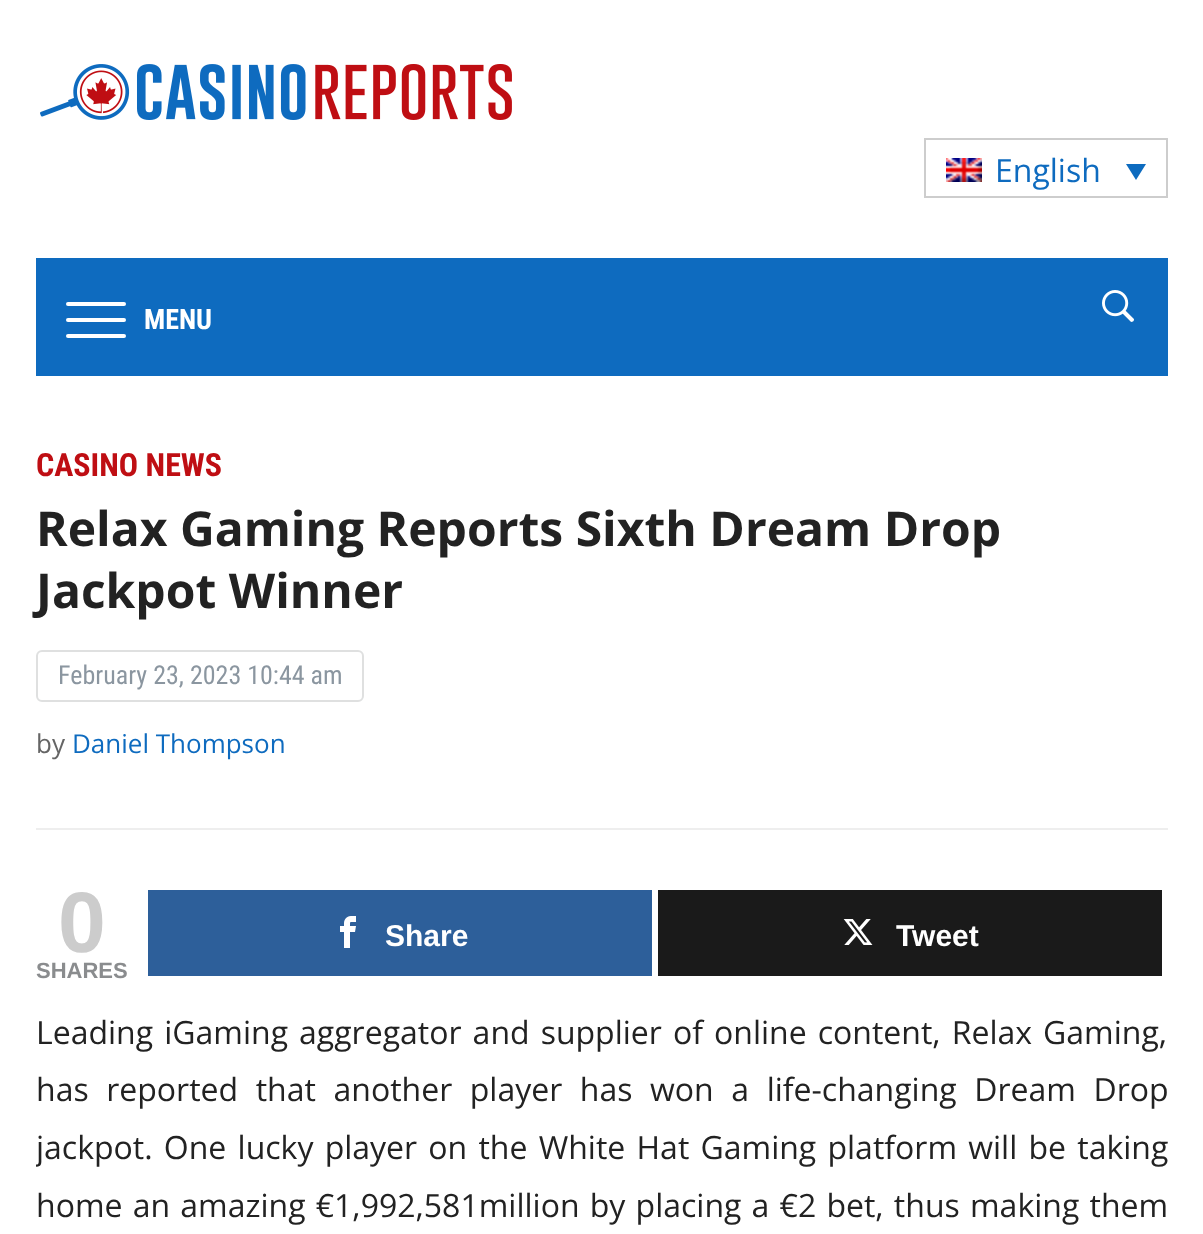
<svg xmlns="http://www.w3.org/2000/svg" width="1203" height="1234" viewBox="0 0 1203 1234">
  <defs>
    <clipPath id="clip1"><path d="M36 870h1132v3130H36z"/></clipPath>
  </defs>
  <rect width="100%" height="100%" fill="#fff"/>
  <image x="40" y="64" width="472" height="56" href="img/1.png"/>
  <path d="M925 139h242v58H925z" fill="none" stroke="#cdcdcd" stroke-width="2"/>
  <image x="946" y="158" width="36" height="24" href="img/2.png"/>
  <path d="M1126 164H1146L1136 180Z" fill="#0d6bbf"/>
  <path d="M36 258h1132v118H36z" fill="#0e6bbf"/>
  <rect x="66" y="302" width="60" height="4" rx="2" fill="#fff"/>
  <rect x="66" y="318" width="60" height="4" rx="2" fill="#fff"/>
  <rect x="66" y="334" width="60" height="4" rx="2" fill="#fff"/>
  <image x="1102" y="290" width="32" height="32" href="img/3.png"/>
  <path d="M36 828h1132v2H36z" fill="#eee"/>
  <rect x="37" y="651" width="326" height="50" rx="5" fill="none" stroke="#dfe0e0" stroke-width="2"/>
  <path d="M148 890h504v86H148z" fill="#2d5f9a"/>
  <image x="340" y="916" width="16" height="32" href="img/4.png"/>
  <path d="M658 890h504v86H658z" fill="#1a1a1a"/>
  <image x="843" y="919" width="30" height="26" href="img/5.png"/>
  <text x="995" y="182" font-family="Open Sans" font-size="32" fill="#0e6bbf">English</text>
  <text x="144" y="329" font-family="Roboto Condensed" font-size="28" font-weight="bold" fill="#fff">MENU</text>
  <text x="36" y="476" font-family="Roboto Condensed" font-size="32" font-weight="bold" fill="#bf0e13">CASINO NEWS</text>
  <g font-family="Open Sans" font-size="48" font-weight="bold" fill="#222">
    <text x="36" y="546">Relax Gaming Reports Sixth Dream Drop</text>
    <text x="36" y="608">Jackpot Winner</text>
  </g>
  <text x="58" y="684" font-family="Roboto Condensed" font-size="26" fill="#8b96a0">February 23, 2023 10:44 am</text>
  <text x="36" y="753" font-family="Open Sans" font-size="26" fill="#656565">by</text>
  <text x="72" y="753" font-family="Open Sans" font-size="26" fill="#0e6bbf">Daniel Thompson</text>
  <text x="58" y="952" font-family="Liberation Sans" font-size="86" font-weight="bold" fill="#ccc">0</text>
  <text x="36" y="978" font-family="Liberation Sans" font-size="22" font-weight="bold" fill="#8a8c8e">SHARES</text>
  <g font-family="Liberation Sans" font-size="30" font-weight="bold" fill="#fff">
    <text x="385" y="946">Share</text>
    <text x="896" y="946">Tweet</text>
  </g>
  <g font-family="Open Sans" font-size="32" fill="#222">
    <text x="36" y="1044" word-spacing="2.75">Leading iGaming aggregator and supplier of online content, Relax Gaming,</text>
    <text x="36" y="1101" word-spacing="9.25">has reported that another player has won a life-changing Dream Drop</text>
  </g>
  <g clip-path="url(#clip1)">
    <text x="36" y="1159" word-spacing="2.9" font-family="Open Sans" font-size="32" fill="#222">jackpot. One lucky player on the White Hat Gaming platform will be taking</text>
  </g>
  <text x="36" y="1217" word-spacing="1.9" font-family="Open Sans" font-size="32" fill="#222">home an amazing €1,992,581million by placing a €2 bet, thus making them</text>
</svg>
